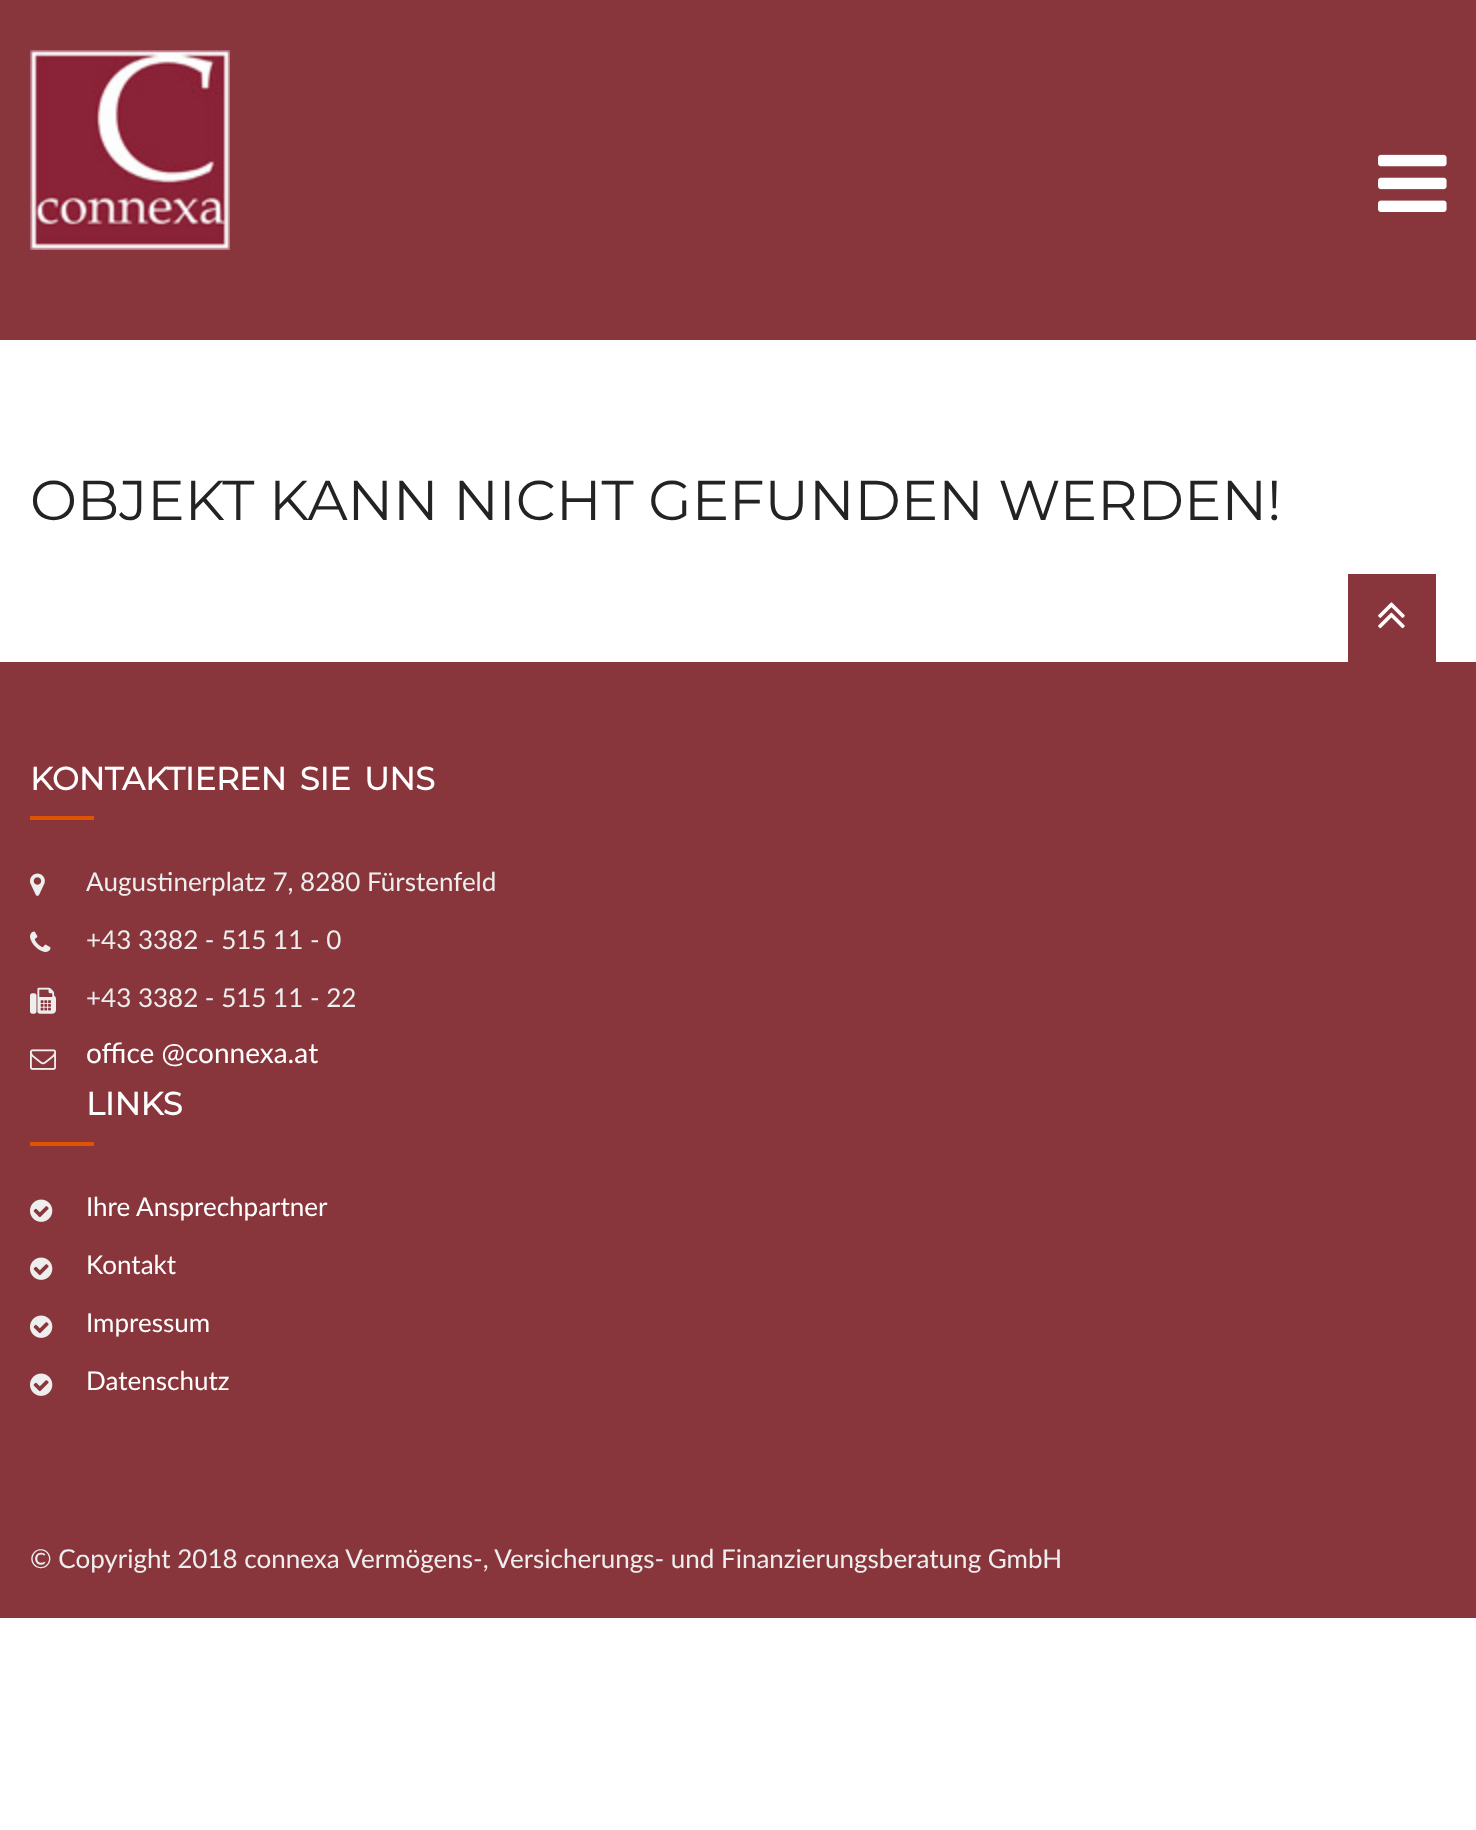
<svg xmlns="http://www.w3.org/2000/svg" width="1476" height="1830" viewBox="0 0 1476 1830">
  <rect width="100%" height="100%" fill="#fff"/>
  <path d="M0 0h1476v340H0z" fill="#88363c"/>
  <image x="30" y="50" width="200" height="200" href="img/1.png"/>
  <image x="1378" y="154" width="69" height="58" href="img/2.png"/>
  <path d="M0 662h1476v956H0z" fill="#88363c"/>
  <path d="M1348 574h88v88H1348z" fill="#88363c"/>
  <image x="1378" y="602" width="27" height="27" href="img/3.png"/>
  <path d="M30 816h64v4H30z" fill="#df5400"/>
  <image x="30" y="873" width="15" height="23" href="img/4.png"/>
  <image x="30" y="931" width="21" height="21" href="img/5.png"/>
  <image x="30" y="987" width="26" height="27" href="img/6.png"/>
  <image x="30" y="1049" width="26" height="21" href="img/7.png"/>
  <path d="M30 1142h64v4H30z" fill="#df5400"/>
  <image x="30" y="1199" width="23" height="23" href="img/8.png"/>
  <image x="30" y="1257" width="23" height="23" href="img/8.png"/>
  <image x="30" y="1315" width="23" height="23" href="img/8.png"/>
  <image x="30" y="1373" width="23" height="23" href="img/8.png"/>
  <text x="30" y="520" font-family="Montserrat" font-size="56" fill="#232323">OBJEKT KANN NICHT GEFUNDEN WERDEN!</text>
  <text x="30" y="790" word-spacing="5" font-family="Montserrat" font-size="32" font-weight="bold" fill="#fff">KONTAKTIEREN SIE UNS</text>
  <g font-family="Lato" font-size="26" fill="#eee">
    <text x="86" y="891">Augustinerplatz 7, 8280 Fürstenfeld</text>
    <text x="86" y="949">+43 3382 - 515 11 - 0</text>
    <text x="86" y="1007">+43 3382 - 515 11 - 22</text>
  </g>
  <text x="86" y="1063" font-family="Lato" font-size="28" fill="#fff">office @connexa.at</text>
  <text x="86" y="1115" font-family="Montserrat" font-size="32" font-weight="bold" fill="#fff">LINKS</text>
  <g font-family="Lato" font-size="26" fill="#fff">
    <text x="86" y="1216">Ihre Ansprechpartner</text>
    <text x="86" y="1274">Kontakt</text>
    <text x="86" y="1332">Impressum</text>
    <text x="86" y="1390">Datenschutz</text>
  </g>
  <text x="30" y="1568" font-family="Lato" font-size="26" fill="#eee">© Copyright 2018 connexa Vermögens-, Versicherungs- und Finanzierungsberatung GmbH</text>
</svg>
